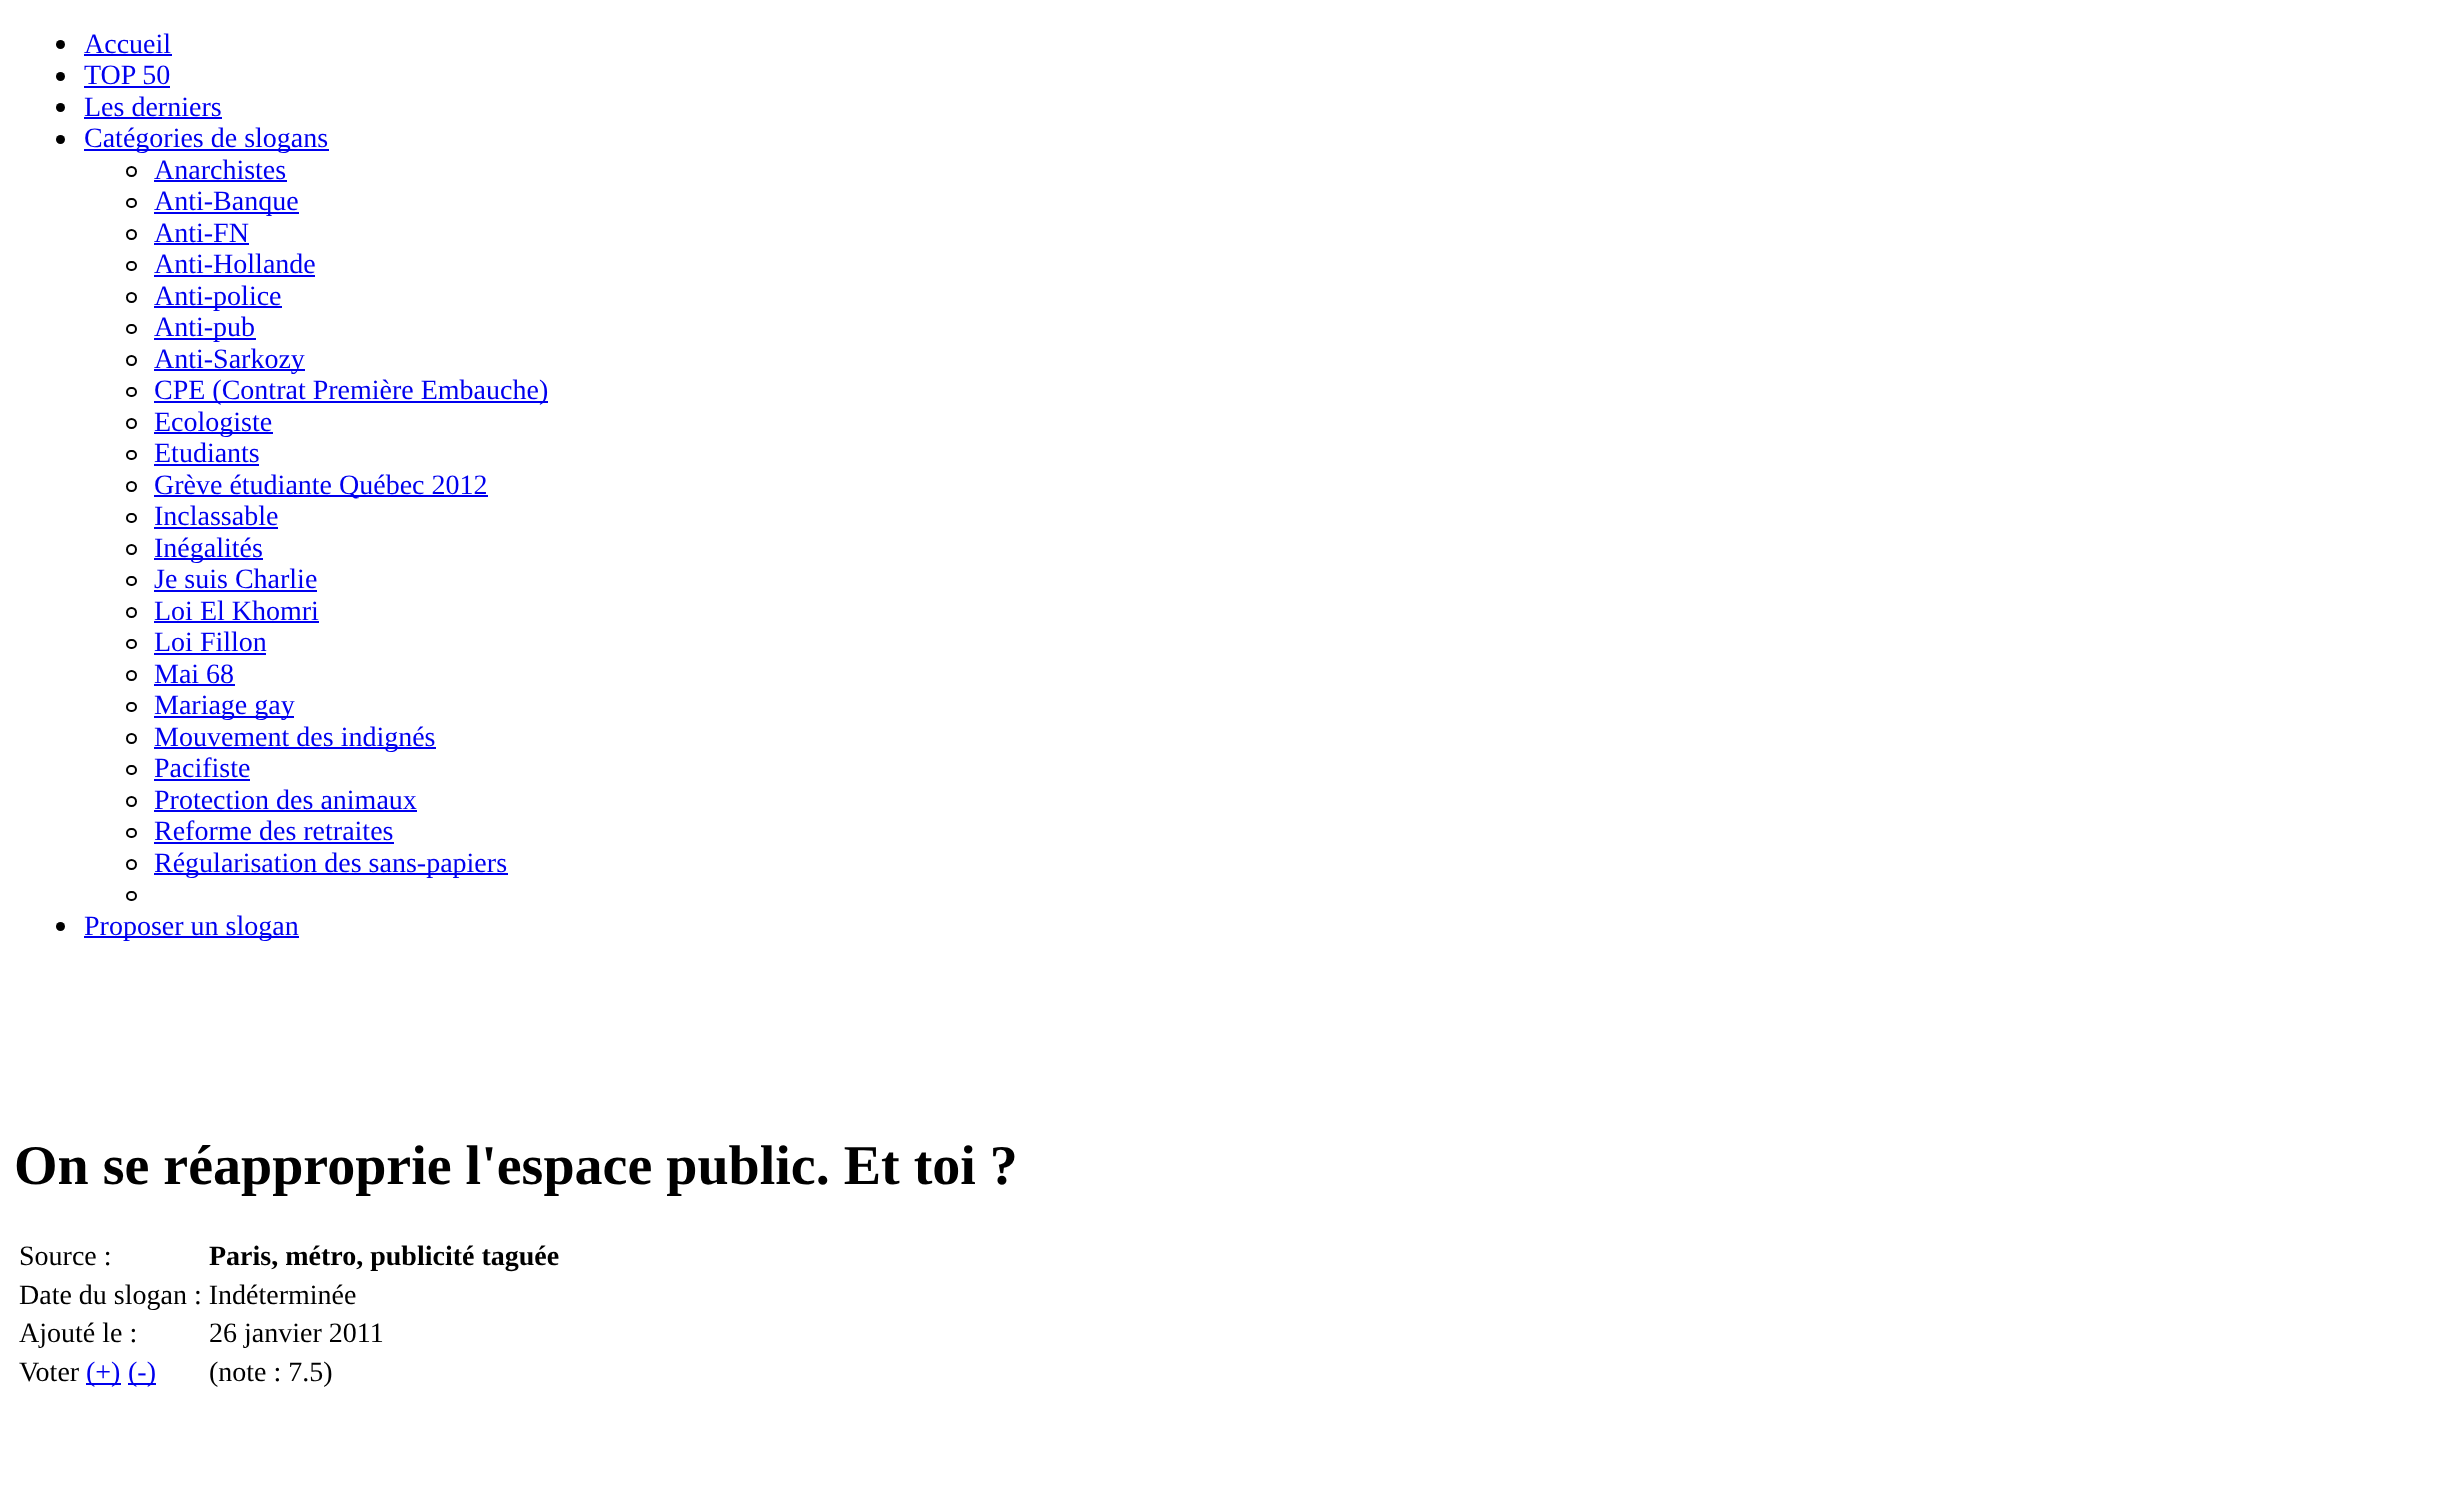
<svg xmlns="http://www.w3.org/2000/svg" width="2446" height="1499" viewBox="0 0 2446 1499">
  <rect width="100%" height="100%" fill="#fff"/>
  <circle cx="60.5" cy="44.5" r="4.5" fill="#000"/>
  <path d="M84 54h88v2H84z" fill="#00e"/>
  <circle cx="60.5" cy="76.5" r="4.5" fill="#000"/>
  <path d="M84 86h86v2H84z" fill="#00e"/>
  <circle cx="60.5" cy="107.5" r="4.5" fill="#000"/>
  <path d="M84 117h138v2H84z" fill="#00e"/>
  <circle cx="60.5" cy="139.5" r="4.5" fill="#000"/>
  <path d="M84 149h245v2H84z" fill="#00e"/>
  <circle cx="131.5" cy="171.5" r="4.5" fill="none" stroke="#000" stroke-width="2"/>
  <path d="M154 180h133v2H154z" fill="#00e"/>
  <rect x="127" y="199" width="9" height="8" rx="4" fill="none" stroke="#000" stroke-width="2"/>
  <path d="M154 212h145v2H154z" fill="#00e"/>
  <circle cx="131.5" cy="234.5" r="4.5" fill="none" stroke="#000" stroke-width="2"/>
  <path d="M154 243h95v2H154z" fill="#00e"/>
  <rect x="127" y="262" width="9" height="8" rx="4" fill="none" stroke="#000" stroke-width="2"/>
  <path d="M154 275h161v2H154z" fill="#00e"/>
  <circle cx="131.5" cy="297.5" r="4.5" fill="none" stroke="#000" stroke-width="2"/>
  <path d="M154 306h128v2H154z" fill="#00e"/>
  <rect x="127" y="325" width="9" height="8" rx="4" fill="none" stroke="#000" stroke-width="2"/>
  <path d="M154 338h102v2H154z" fill="#00e"/>
  <circle cx="131.5" cy="360.5" r="4.5" fill="none" stroke="#000" stroke-width="2"/>
  <path d="M154 369h151v2H154z" fill="#00e"/>
  <rect x="127" y="388" width="9" height="8" rx="4" fill="none" stroke="#000" stroke-width="2"/>
  <path d="M154 401h394v2H154z" fill="#00e"/>
  <circle cx="131.5" cy="423.5" r="4.5" fill="none" stroke="#000" stroke-width="2"/>
  <path d="M154 432h119v2H154z" fill="#00e"/>
  <rect x="127" y="451" width="9" height="8" rx="4" fill="none" stroke="#000" stroke-width="2"/>
  <path d="M154 464h105v2H154z" fill="#00e"/>
  <circle cx="131.5" cy="486.5" r="4.5" fill="none" stroke="#000" stroke-width="2"/>
  <path d="M154 495h334v2H154z" fill="#00e"/>
  <rect x="127" y="514" width="9" height="8" rx="4" fill="none" stroke="#000" stroke-width="2"/>
  <path d="M154 527h124v2H154z" fill="#00e"/>
  <circle cx="131.5" cy="549.5" r="4.5" fill="none" stroke="#000" stroke-width="2"/>
  <path d="M154 558h109v2H154z" fill="#00e"/>
  <rect x="127" y="577" width="9" height="8" rx="4" fill="none" stroke="#000" stroke-width="2"/>
  <path d="M154 590h163v2H154z" fill="#00e"/>
  <circle cx="131.5" cy="612.5" r="4.5" fill="none" stroke="#000" stroke-width="2"/>
  <path d="M154 621h165v2H154z" fill="#00e"/>
  <rect x="127" y="640" width="9" height="8" rx="4" fill="none" stroke="#000" stroke-width="2"/>
  <path d="M154 653h112v2H154z" fill="#00e"/>
  <circle cx="131.5" cy="675.5" r="4.5" fill="none" stroke="#000" stroke-width="2"/>
  <path d="M154 684h81v2H154z" fill="#00e"/>
  <rect x="127" y="703" width="9" height="8" rx="4" fill="none" stroke="#000" stroke-width="2"/>
  <path d="M154 716h140v2H154z" fill="#00e"/>
  <circle cx="131.5" cy="738.5" r="4.5" fill="none" stroke="#000" stroke-width="2"/>
  <path d="M154 747h282v2H154z" fill="#00e"/>
  <rect x="127" y="766" width="9" height="8" rx="4" fill="none" stroke="#000" stroke-width="2"/>
  <path d="M154 779h96v2H154z" fill="#00e"/>
  <circle cx="131.5" cy="801.5" r="4.5" fill="none" stroke="#000" stroke-width="2"/>
  <path d="M154 810h263v2H154z" fill="#00e"/>
  <rect x="127" y="829" width="9" height="8" rx="4" fill="none" stroke="#000" stroke-width="2"/>
  <path d="M154 842h240v2H154z" fill="#00e"/>
  <circle cx="131.5" cy="864.5" r="4.5" fill="none" stroke="#000" stroke-width="2"/>
  <path d="M154 873h354v2H154z" fill="#00e"/>
  <rect x="127" y="892" width="9" height="8" rx="4" fill="none" stroke="#000" stroke-width="2"/>
  <circle cx="60.5" cy="926.5" r="4.5" fill="#000"/>
  <path d="M84 936h215v2H84z" fill="#00e"/>
  <path d="M86 1383h35v2H86z" fill="#00e"/>
  <path d="M128 1383h28v2H128z" fill="#00e"/>
  <g font-family="Liberation Serif" font-size="28" fill="#00e">
    <text x="84" y="53">Accueil</text>
    <text x="84" y="84">TOP 50</text>
    <text x="84" y="116">Les derniers</text>
    <text x="84" y="147">Catégories de slogans</text>
    <text x="154" y="179">Anarchistes</text>
    <text x="154" y="210">Anti-Banque</text>
    <text x="154" y="242">Anti-FN</text>
    <text x="154" y="273">Anti-Hollande</text>
    <text x="154" y="305">Anti-police</text>
    <text x="154" y="336">Anti-pub</text>
    <text x="154" y="368">Anti-Sarkozy</text>
    <text x="154" y="399">CPE (Contrat Première Embauche)</text>
    <text x="154" y="431">Ecologiste</text>
    <text x="154" y="462">Etudiants</text>
    <text x="154" y="494">Grève étudiante Québec 2012</text>
    <text x="154" y="525">Inclassable</text>
    <text x="154" y="557">Inégalités</text>
    <text x="154" y="588">Je suis Charlie</text>
    <text x="154" y="620">Loi El Khomri</text>
    <text x="154" y="651">Loi Fillon</text>
    <text x="154" y="683">Mai 68</text>
    <text x="154" y="714">Mariage gay</text>
    <text x="154" y="746">Mouvement des indignés</text>
    <text x="154" y="777">Pacifiste</text>
    <text x="154" y="809">Protection des animaux</text>
    <text x="154" y="840">Reforme des retraites</text>
    <text x="154" y="872">Régularisation des sans-papiers</text>
    <text x="84" y="935">Proposer un slogan</text>
  </g>
  <text x="14" y="1184" font-family="Liberation Serif" font-size="56" font-weight="bold" fill="#000">On se réapproprie l'espace public. Et toi ?</text>
  <text x="19" y="1265" font-family="Liberation Serif" font-size="28" fill="#000">Source :</text>
  <text x="209" y="1265" font-family="Liberation Serif" font-size="28" font-weight="bold" fill="#000">Paris, métro, publicité taguée</text>
  <g font-family="Liberation Serif" font-size="28" fill="#000">
    <text x="19" y="1304">Date du slogan : Indéterminée</text>
    <text x="19" y="1342">Ajouté le :</text>
    <text x="209" y="1342">26 janvier 2011</text>
    <text x="19" y="1381">Voter</text>
  </g>
  <g font-family="Liberation Serif" font-size="28" fill="#00e">
    <text x="86" y="1381">(+)</text>
    <text x="128" y="1381">(-)</text>
  </g>
  <text x="209" y="1381" font-family="Liberation Serif" font-size="28" fill="#000">(note : 7.5)</text>
</svg>
